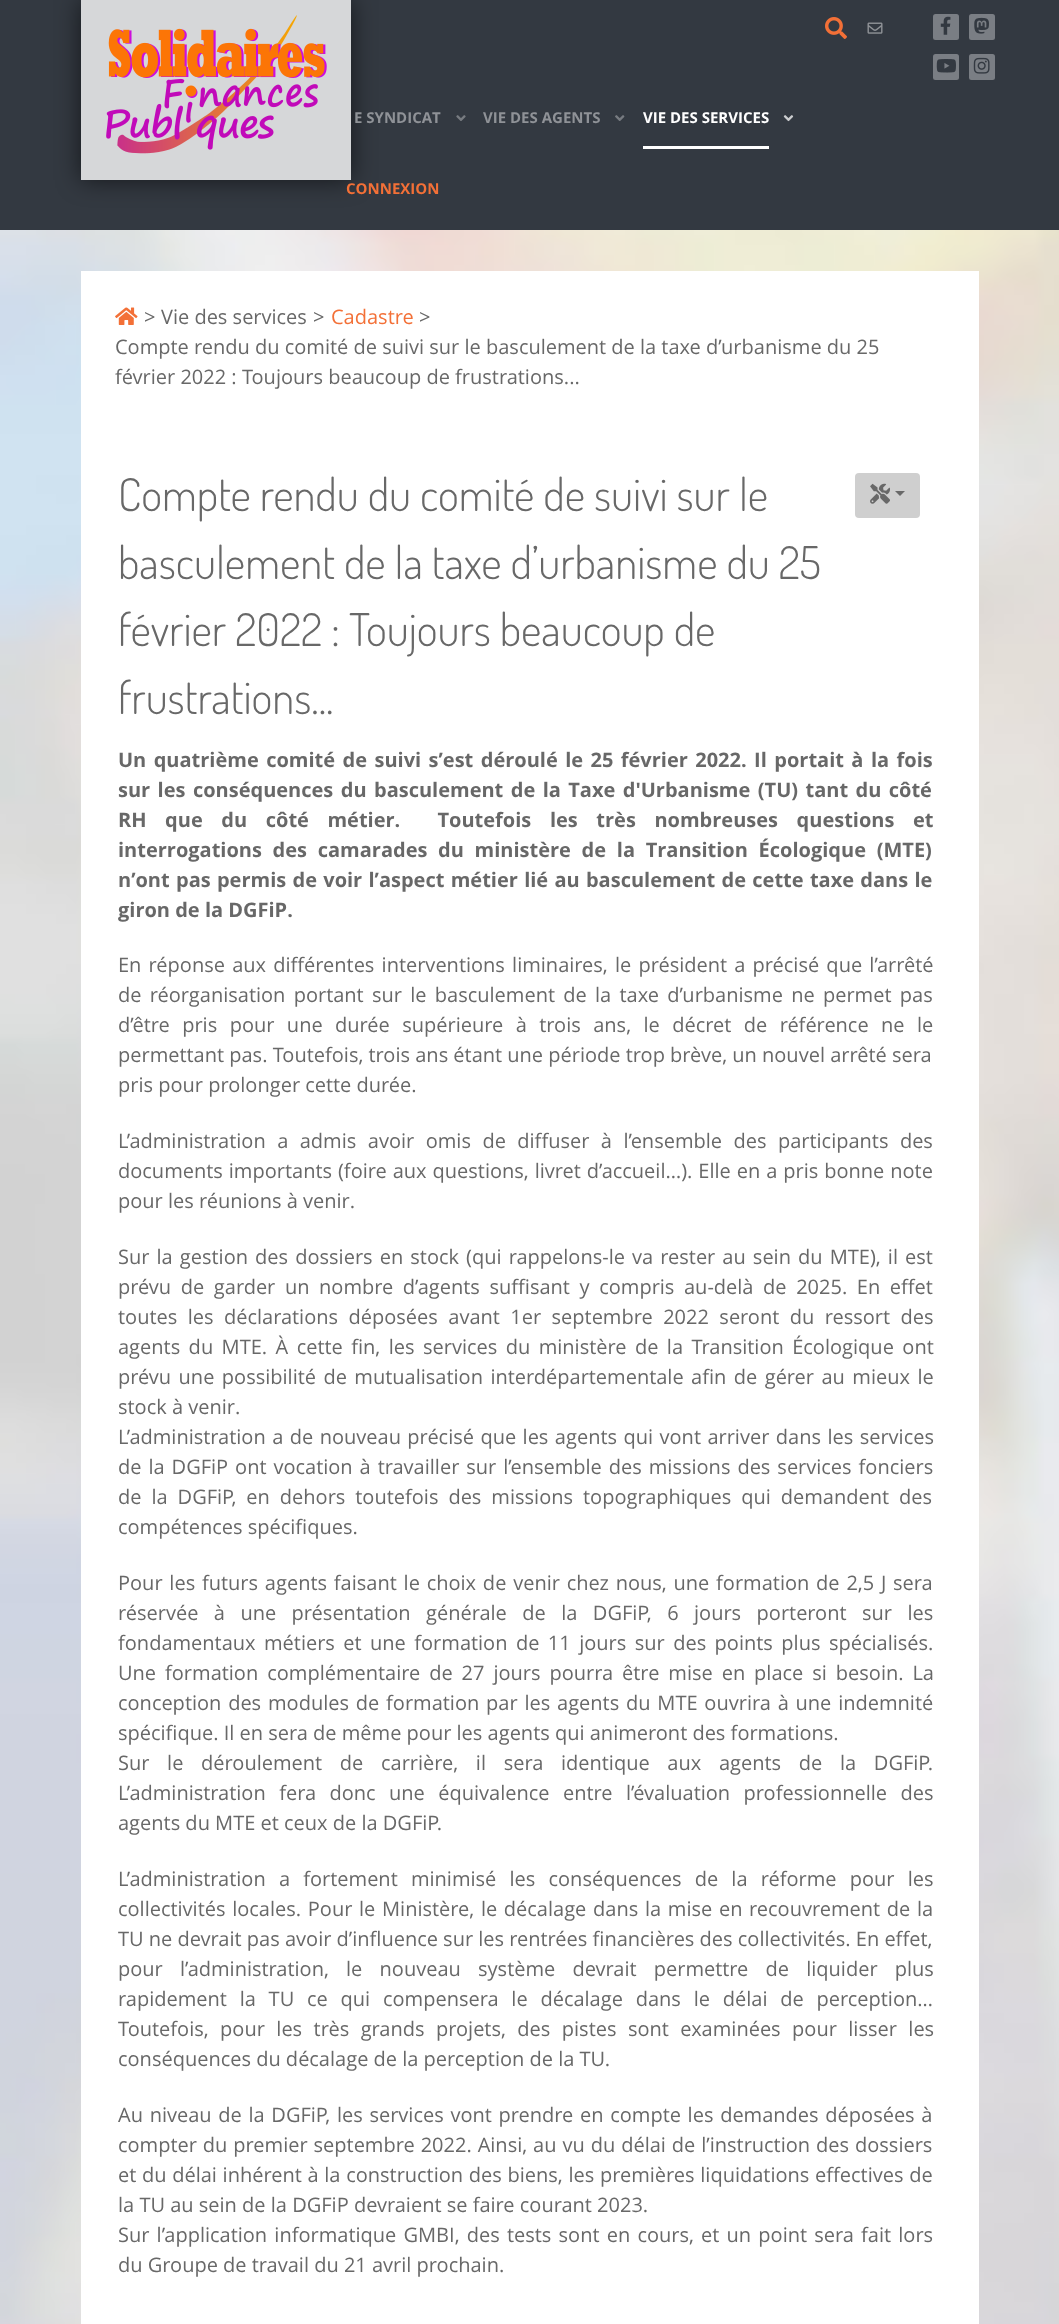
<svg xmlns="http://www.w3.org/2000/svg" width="1059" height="2324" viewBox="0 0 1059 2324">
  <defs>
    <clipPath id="clip1"><path d="M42 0H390V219H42ZM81 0H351V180H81Z" clip-rule="evenodd"/></clipPath>
  </defs>
  <rect width="100%" height="100%" fill="#fff"/>
  <image x="0" y="230" width="1059" height="2094" href="img/1.png"/>
  <path d="M0 0h1059v230H0z" fill="#333941"/>
  <g clip-path="url(#clip1)">
    <path d="M81 0h270v180H81z" fill="#00000099" filter="blur(12.5px)"/>
  </g>
  <path d="M81 0h270v180H81z" fill="#ffffffcc"/>
  <image x="106" y="15" width="221" height="139" href="img/2.png"/>
  <image x="825" y="17" width="22" height="22" href="img/3.png"/>
  <image x="867" y="22" width="16" height="12" href="img/4.png"/>
  <rect x="933" y="14" width="26" height="26" rx="2.5" fill="#7a7e84"/>
  <image x="940" y="16" width="11" height="19" href="img/5.png"/>
  <rect x="969" y="14" width="26" height="26" rx="2.5" fill="#7a7e84"/>
  <image x="974" y="17" width="15" height="17" href="img/6.png"/>
  <rect x="933" y="54" width="26" height="26" rx="2.5" fill="#7a7e84"/>
  <image x="936" y="59" width="20" height="14" href="img/7.png"/>
  <rect x="969" y="54" width="26" height="26" rx="2.5" fill="#7a7e84"/>
  <image x="973" y="57" width="17" height="17" href="img/8.png"/>
  <image x="456" y="115" width="10" height="6" href="img/9.png"/>
  <image x="615" y="115" width="10" height="6" href="img/10.png"/>
  <path d="M643 146h126v3H643z" fill="#fff"/>
  <image x="783" y="115" width="11" height="7" href="img/11.png"/>
  <path d="M81 271h898v2053H81z" fill="#fff"/>
  <image x="115" y="307" width="23" height="18" href="img/12.png"/>
  <rect x="855" y="473" width="65" height="45" rx="4" fill="#cfcfcf"/>
  <image x="870" y="483" width="20" height="21" href="img/13.png"/>
  <path d="M895 491H905L900 496Z" fill="#686868"/>
  <g font-family="Open Sans" font-size="15" font-weight="bold" fill="#8f9297">
    <text x="354" y="123">E SYNDICAT</text>
    <text x="483" y="123">VIE DES AGENTS</text>
  </g>
  <text x="643" y="123" font-family="Open Sans" font-size="15" font-weight="bold" fill="#fff">VIE DES SERVICES</text>
  <text x="346" y="194" font-family="Open Sans" font-size="15" font-weight="bold" fill="#f37037">CONNEXION</text>
  <g font-family="Open Sans" font-size="20" fill="#686868">
    <text x="144" y="324">&gt;</text>
    <text x="161" y="324">Vie des services</text>
    <text x="313" y="324">&gt;</text>
  </g>
  <text x="331" y="324" font-family="Open Sans" font-size="20" fill="#f37037">Cadastre</text>
  <g font-family="Open Sans" font-size="20" fill="#686868">
    <text x="419" y="324">&gt;</text>
    <text x="115" y="354">Compte rendu du comité de suivi sur le basculement de la taxe d’urbanisme du 25</text>
    <text x="115" y="384">février 2022 : Toujours beaucoup de frustrations...</text>
  </g>
  <g font-family="Dosis" font-size="45" font-weight="300" fill="#686868">
    <text x="118" y="511">Compte rendu du comité de suivi sur le</text>
    <text x="118" y="579">basculement de la taxe d’urbanisme du 25</text>
    <text x="118" y="646">février 2022 : Toujours beaucoup de</text>
    <text x="118" y="714">frustrations...</text>
  </g>
  <g font-family="Open Sans" font-size="20" font-weight="bold" fill="#686868">
    <text x="118" y="767" word-spacing="2.25">Un quatrième comité de suivi s’est déroulé le 25 février 2022. Il portait à la fois</text>
    <text x="118" y="797" word-spacing="2.25">sur les conséquences du basculement de la Taxe d'Urbanisme (TU) tant du côté</text>
    <text x="118" y="827" word-spacing="13.4" xml:space="preserve">RH que du côté métier.  Toutefois les très nombreuses questions et</text>
    <text x="118" y="857" word-spacing="5.5">interrogations des camarades du ministère de la Transition Écologique (MTE)</text>
    <text x="118" y="887" word-spacing="1.1">n’ont pas permis de voir l’aspect métier lié au basculement de cette taxe dans le</text>
    <text x="118" y="917">giron de la DGFiP.</text>
  </g>
  <g font-family="Open Sans" font-size="20" fill="#686868">
    <text x="118" y="972" word-spacing="2">En réponse aux différentes interventions liminaires, le président a précisé que l’arrêté</text>
    <text x="118" y="1002" word-spacing="3.1">de réorganisation portant sur le basculement de la taxe d’urbanisme ne permet pas</text>
    <text x="118" y="1032" word-spacing="7.25">d’être pris pour une durée supérieure à trois ans, le décret de référence ne le</text>
    <text x="118" y="1062">permettant pas. Toutefois, trois ans étant une période trop brève, un nouvel arrêté sera</text>
    <text x="118" y="1092">pris pour prolonger cette durée.</text>
    <text x="118" y="1148" word-spacing="6.25">L’administration a admis avoir omis de diffuser à l’ensemble des participants des</text>
    <text x="118" y="1178" word-spacing="0.75">documents importants (foire aux questions, livret d’accueil…). Elle en a pris bonne note</text>
    <text x="118" y="1208">pour les réunions à venir.</text>
    <text x="118" y="1264" word-spacing="1.9">Sur la gestion des dossiers en stock (qui rappelons-le va rester au sein du MTE), il est</text>
    <text x="118" y="1294" word-spacing="4.4">prévu de garder un nombre d’agents suffisant y compris au-delà de 2025. En effet</text>
    <text x="118" y="1324" word-spacing="5.25">toutes les déclarations déposées avant 1er septembre 2022 seront du ressort des</text>
    <text x="118" y="1354" word-spacing="3.25">agents du MTE. À cette fin, les services du ministère de la Transition Écologique ont</text>
    <text x="118" y="1384" word-spacing="2.25">prévu une possibilité de mutualisation interdépartementale afin de gérer au mieux le</text>
    <text x="118" y="1414">stock à venir.</text>
    <text x="118" y="1444" word-spacing="1.25">L’administration a de nouveau précisé que les agents qui vont arriver dans les services</text>
    <text x="118" y="1474" word-spacing="1.75">de la DGFiP ont vocation à travailler sur l’ensemble des missions des services fonciers</text>
    <text x="118" y="1504" word-spacing="4.75">de la DGFiP, en dehors toutefois des missions topographiques qui demandent des</text>
    <text x="118" y="1534">compétences spécifiques.</text>
    <text x="118" y="1590" word-spacing="1.6">Pour les futurs agents faisant le choix de venir chez nous, une formation de 2,5 J sera</text>
    <text x="118" y="1620" word-spacing="10.25">réservée à une présentation générale de la DGFiP, 6 jours porteront sur les</text>
    <text x="118" y="1650" word-spacing="3.25">fondamentaux métiers et une formation de 11 jours sur des points plus spécialisés.</text>
    <text x="118" y="1680" word-spacing="3.75">Une formation complémentaire de 27 jours pourra être mise en place si besoin. La</text>
    <text x="118" y="1710" word-spacing="1.6">conception des modules de formation par les agents du MTE ouvrira à une indemnité</text>
    <text x="118" y="1740">spécifique. Il en sera de même pour les agents qui animeront des formations.</text>
    <text x="118" y="1770" word-spacing="12.5">Sur le déroulement de carrière, il sera identique aux agents de la DGFiP.</text>
    <text x="118" y="1800" word-spacing="8.25">L’administration fera donc une équivalence entre l’évaluation professionnelle des</text>
    <text x="118" y="1830">agents du MTE et ceux de la DGFiP.</text>
    <text x="118" y="1886" word-spacing="8">L’administration a fortement minimisé les conséquences de la réforme pour les</text>
    <text x="118" y="1916" word-spacing="1.5">collectivités locales. Pour le Ministère, le décalage dans la mise en recouvrement de la</text>
    <text x="118" y="1946">TU ne devrait pas avoir d’influence sur les rentrées financières des collectivités. En effet,</text>
    <text x="118" y="1976" word-spacing="12">pour l’administration, le nouveau système devrait permettre de liquider plus</text>
    <text x="118" y="2006" word-spacing="7.6">rapidement la TU ce qui compensera le décalage dans le délai de perception…</text>
    <text x="118" y="2036" word-spacing="6.25">Toutefois, pour les très grands projets, des pistes sont examinées pour lisser les</text>
    <text x="118" y="2066">conséquences du décalage de la perception de la TU.</text>
    <text x="118" y="2122" word-spacing="1.5">Au niveau de la DGFiP, les services vont prendre en compte les demandes déposées à</text>
    <text x="118" y="2152" word-spacing="0.75">compter du premier septembre 2022. Ainsi, au vu du délai de l’instruction des dossiers</text>
    <text x="118" y="2182" word-spacing="0.5">et du délai inhérent à la construction des biens, les premières liquidations effectives de</text>
    <text x="118" y="2212">la TU au sein de la DGFiP devraient se faire courant 2023.</text>
    <text x="118" y="2242" word-spacing="2">Sur l’application informatique GMBI, des tests sont en cours, et un point sera fait lors</text>
    <text x="118" y="2272">du Groupe de travail du 21 avril prochain.</text>
  </g>
</svg>
